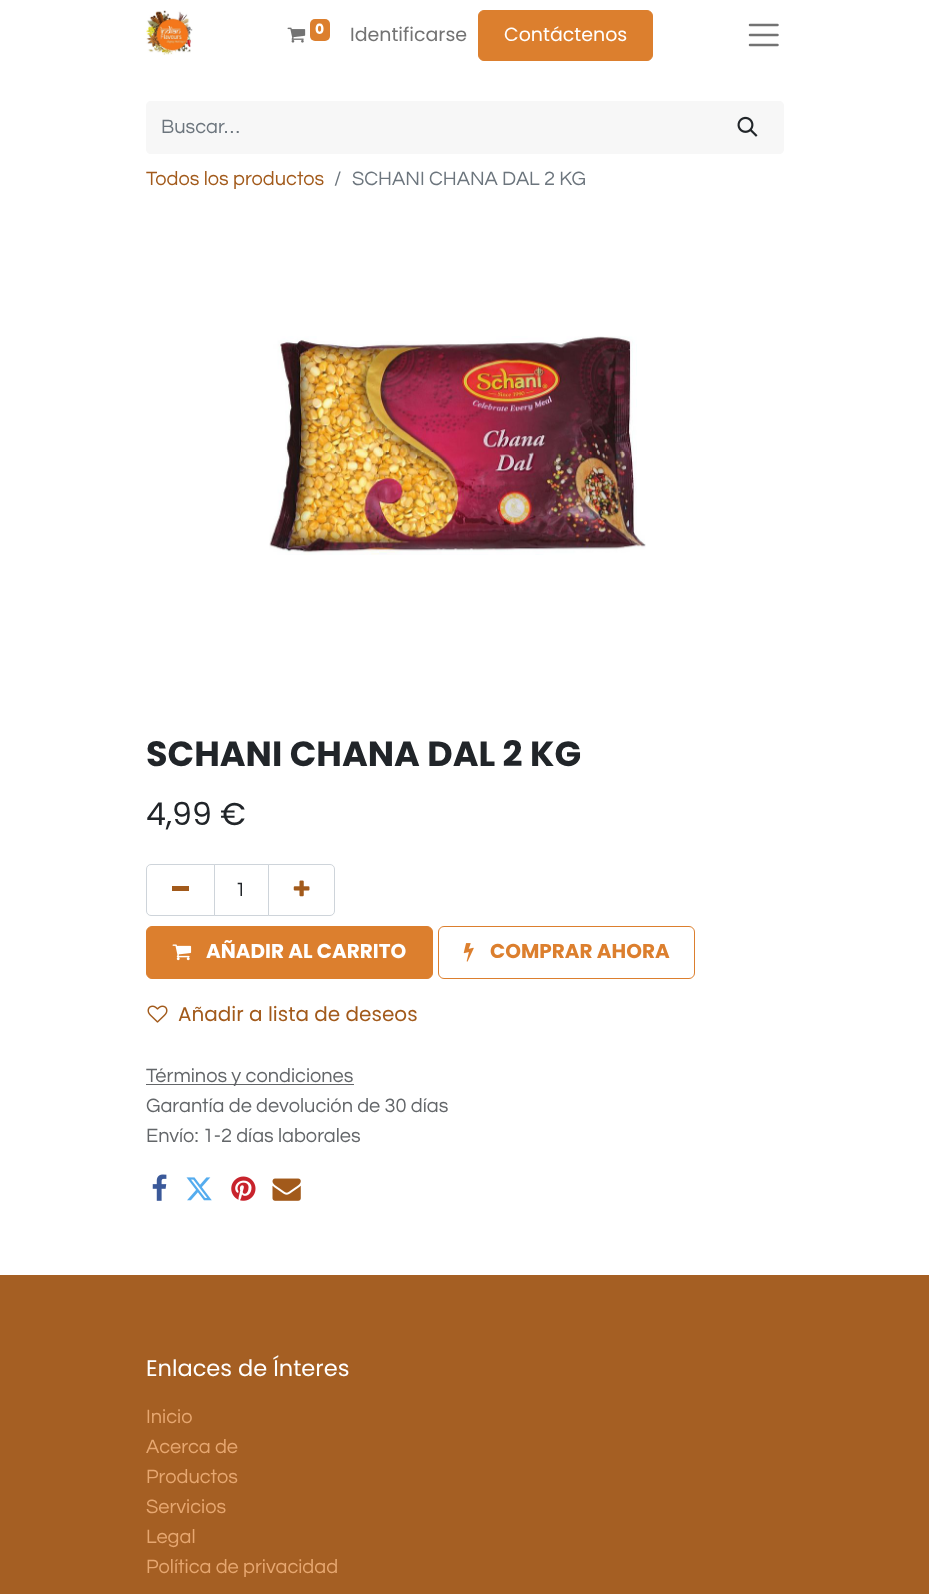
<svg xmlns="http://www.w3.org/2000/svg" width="929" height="1594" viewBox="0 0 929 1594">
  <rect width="100%" height="100%" fill="#fff"/>
  <image x="146" y="10" width="47" height="45" href="img/1.png"/>
  <image x="287" y="27" width="19" height="16" href="img/2.png"/>
  <rect x="310" y="19" width="20" height="22" rx="5" fill="#dc7f2e"/>
  <rect x="478.5" y="10.5" width="174" height="50" rx="5.5" fill="#dc7f2e" stroke="#dc7f2e"/>
  <path d="M750 25H777.5M750 35H777.5M750 45H777.5" fill="none" stroke="#737373" stroke-width="2.5" stroke-linecap="round"/>
  <path d="M151 101H713V154H151C148 154 146 152 146 149V106C146 103 148 101 151 101Z" fill="#f7f7f7"/>
  <path d="M711 101H779C782 101 784 103 784 106V149C784 152 782 154 779 154H711Z" fill="#f7f7f7"/>
  <image x="737" y="116" width="21" height="21" href="img/3.png"/>
  <image x="269" y="336" width="377" height="219" href="img/4.png"/>
  <path d="M214.5 864.5h54v51H214.5z" fill="none" stroke="#ced4da"/>
  <path d="M151 864.5H214.5V915.5H151C148.5 915.5 146.5 913.5 146.5 911V869C146.5 866.5 148.5 864.5 151 864.5Z" fill="none" stroke="#ced4da"/>
  <path d="M172 886h17v5H172z" fill="#a25a1b"/>
  <path d="M268.5 864.5H330C332.5 864.5 334.5 866.5 334.5 869V911C334.5 913.5 332.5 915.5 330 915.5H268.5Z" fill="none" stroke="#ced4da"/>
  <image x="293" y="880" width="17" height="17" href="img/5.png"/>
  <rect x="146.5" y="926.5" width="286" height="52" rx="5.5" fill="#dc7f2e" stroke="#dc7f2e"/>
  <image x="172" y="944" width="20" height="17" href="img/6.png"/>
  <rect x="438.5" y="926.5" width="256" height="52" rx="5.5" fill="none" stroke="#dc7f2e"/>
  <image x="463" y="943" width="11" height="19" href="img/7.png"/>
  <image x="147" y="1005" width="21" height="18" href="img/8.png"/>
  <path d="M146 1084h208v1H146z" fill="#646669"/>
  <image x="152" y="1174" width="15" height="27" href="img/9.png"/>
  <image x="186" y="1177" width="26" height="24" href="img/10.png"/>
  <image x="231" y="1176" width="25" height="25" href="img/11.png"/>
  <image x="272" y="1178" width="29" height="23" href="img/12.png"/>
  <path d="M0 1275h929v319H0z" fill="#a55f23"/>
  <text x="315" y="34" font-family="Poppins" font-size="14" font-weight="bold" fill="#fff">0</text>
  <text x="350" y="41" font-family="Poppins" font-size="19" fill="#737373">Identificarse</text>
  <text x="504" y="41" font-family="Poppins" font-size="19" fill="#fff">Contáctenos</text>
  <text x="161" y="133" font-family="Questrial" font-size="20" fill="#6c757d">Buscar…</text>
  <text x="146" y="185" font-family="Questrial" font-size="20" fill="#a25a1b">Todos los productos</text>
  <g font-family="Questrial" font-size="20" fill="#6c757d">
    <text x="334" y="185">/</text>
    <text x="352" y="185">SCHANI CHANA DAL 2 KG</text>
  </g>
  <text x="146" y="766" font-family="Poppins" font-size="35" font-weight="bold" fill="#212529">SCHANI CHANA DAL 2 KG</text>
  <text x="146" y="825" font-family="Poppins" font-size="31.5" fill="#212529">4,99 €</text>
  <text x="235" y="896" font-family="Questrial" font-size="20" fill="#212529">1</text>
  <text x="206" y="958" font-family="Poppins" font-size="20" font-weight="bold" fill="#fff">AÑADIR AL CARRITO</text>
  <text x="490" y="958" font-family="Poppins" font-size="20" font-weight="bold" fill="#dc7f2e">COMPRAR AHORA</text>
  <text x="178" y="1021" font-family="Poppins" font-size="20" fill="#a25a1b">Añadir a lista de deseos</text>
  <g font-family="Questrial" font-size="20" fill="#636669">
    <text x="146" y="1082">Términos y condiciones</text>
    <text x="146" y="1112">Garantía de devolución de 30 días</text>
    <text x="146" y="1142">Envío: 1-2 días laborales</text>
  </g>
  <text x="146" y="1376" font-family="Poppins" font-size="22.5" fill="#fff">Enlaces de Ínteres</text>
  <g font-family="Questrial" font-size="20" fill="#e7a770">
    <text x="146" y="1423">Inicio</text>
    <text x="146" y="1453">Acerca de</text>
    <text x="146" y="1483">Productos</text>
    <text x="146" y="1513">Servicios</text>
    <text x="146" y="1543">Legal</text>
    <text x="146" y="1573">Política de privacidad</text>
  </g>
</svg>
